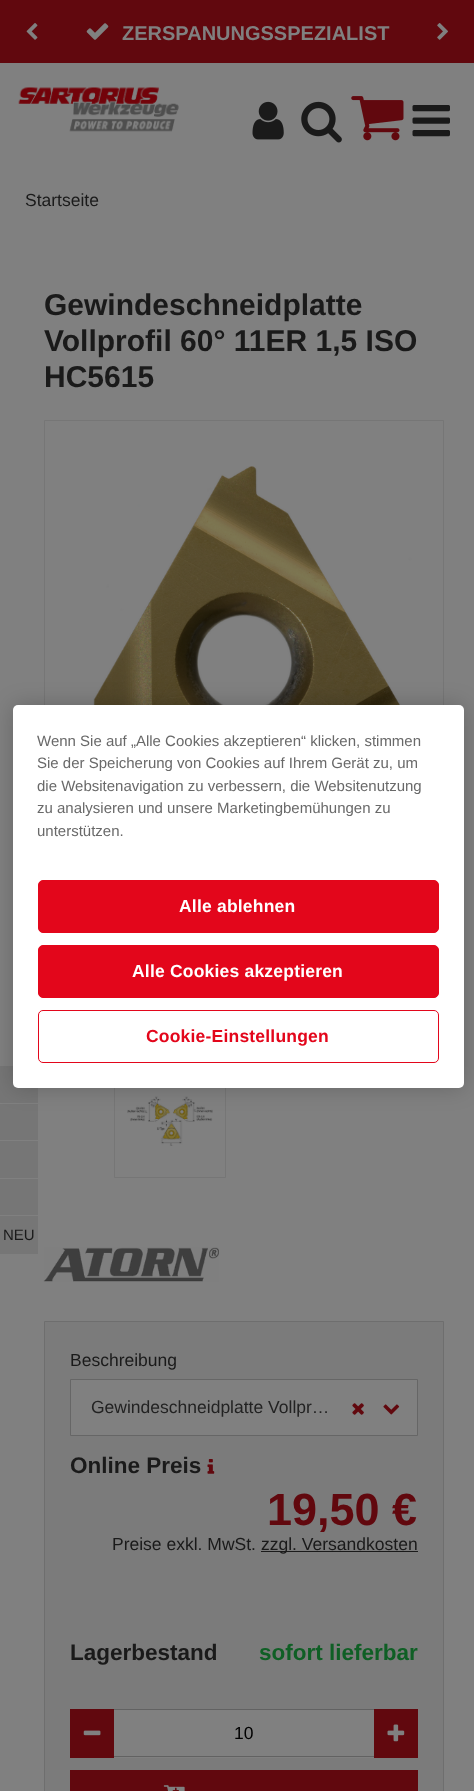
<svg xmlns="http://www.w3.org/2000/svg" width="474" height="1791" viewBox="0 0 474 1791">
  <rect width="100%" height="100%" fill="#808080"/>
  <path d="M0 0h474v63H0z" fill="#61080e"/>
  <image x="26" y="23" width="12" height="17" href="img/1.png"/>
  <image x="437" y="23" width="11" height="17" href="img/2.png"/>
  <image x="86" y="23" width="23" height="17" href="img/3.png"/>
  <image x="18" y="87" width="161" height="45" href="img/4.png"/>
  <image x="252" y="101" width="32" height="39" href="img/5.png"/>
  <image x="301" y="101" width="41" height="42" href="img/6.png"/>
  <image x="351" y="96" width="53" height="45" href="img/7.png"/>
  <image x="412" y="105" width="38" height="32" href="img/8.png"/>
  <path d="M44.5 420.5h399v399H44.5z" fill="none" stroke="#767676"/>
  <image x="70" y="466" width="348" height="239" href="img/9.png"/>
  <path d="M114.5 1065.5h111v112H114.5z" fill="none" stroke="#767676"/>
  <image x="127" y="1096" width="86" height="50" href="img/10.png"/>
  <image x="43" y="1247" width="176" height="35" href="img/11.png"/>
  <path d="M44.5 1321.5h399v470H44.5z" fill="#7b7b7b" stroke="#6e6e6e"/>
  <path d="M70.5 1379.5h347v56H70.5z" fill="#808080" stroke="#666"/>
  <image x="352" y="1403" width="12" height="12" href="img/12.png"/>
  <image x="383" y="1404" width="17" height="11" href="img/13.png"/>
  <image x="207" y="1459" width="8" height="15" href="img/14.png"/>
  <path d="M261 1551h157v1H261z" fill="#1a1a1a"/>
  <path d="M70 1709h44v49H70z" fill="#61080e"/>
  <image x="83" y="1730" width="18" height="6" href="img/15.png"/>
  <path d="M114 1710h260v48H114z" fill="#808080"/>
  <path d="M114 1709h260v1H114z" fill="#626262"/>
  <path d="M114 1756h260v1H114z" fill="#626262"/>
  <path d="M374 1709h44v49H374z" fill="#61080e"/>
  <image x="387" y="1724" width="18" height="18" href="img/16.png"/>
  <path d="M70 1770h348v21H70z" fill="#61080e"/>
  <image x="163" y="1785" width="22" height="6" href="img/17.png"/>
  <path d="M0 1066h38v37H0z" fill="#767676"/>
  <path d="M0 1104h38v36H0z" fill="#767676"/>
  <rect x="13" y="705" width="451" height="383" rx="5" fill="#00000033" filter="blur(11px)"/>
  <rect x="13" y="705" width="451" height="383" rx="5" fill="#fff"/>
  <rect x="38.5" y="880.5" width="400" height="52" rx="4.5" fill="#e3061b" stroke="#e3061b"/>
  <rect x="38.5" y="945.5" width="400" height="52" rx="4.5" fill="#e3061b" stroke="#e3061b"/>
  <rect x="38.5" y="1010.5" width="400" height="52" rx="4.5" fill="none" stroke="#e3061b"/>
  <path d="M0 1141h38v37H0z" fill="#767676"/>
  <path d="M0 1179h38v36H0z" fill="#767676"/>
  <path d="M0 1216h38v38H0z" fill="#767676"/>
  <text x="122" y="40" font-family="Liberation Sans" font-size="20" font-weight="bold" fill="#808080">ZERSPANUNGSSPEZIALIST</text>
  <text x="25" y="206" font-family="Liberation Sans" font-size="17.5" fill="#1a1a1a">Startseite</text>
  <g font-family="Liberation Sans" font-size="30" font-weight="bold" fill="#1a1a1a">
    <text x="44" y="315">Gewindeschneidplatte</text>
    <text x="44" y="351">Vollprofil 60° 11ER 1,5 ISO</text>
    <text x="44" y="387">HC5615</text>
  </g>
  <text x="70" y="1366" font-family="Liberation Sans" font-size="17.5" fill="#1a1a1a">Beschreibung</text>
  <text x="91" y="1413" font-family="Liberation Sans" font-size="17.5" fill="#222">Gewindeschneidplatte Vollpr…</text>
  <text x="70" y="1473" font-family="Liberation Sans" font-size="22.5" font-weight="bold" fill="#1a1a1a">Online Preis</text>
  <text x="267" y="1525" font-family="Liberation Sans" font-size="45" font-weight="bold" fill="#61080e">19,50 €</text>
  <g font-family="Liberation Sans" font-size="17.5" fill="#1a1a1a">
    <text x="112" y="1550">Preise exkl. MwSt.</text>
    <text x="261" y="1550">zzgl. Versandkosten</text>
  </g>
  <text x="70" y="1660" font-family="Liberation Sans" font-size="22.5" font-weight="bold" fill="#1a1a1a">Lagerbestand</text>
  <text x="259" y="1660" font-family="Liberation Sans" font-size="22.5" font-weight="bold" fill="#0f5f25">sofort lieferbar</text>
  <text x="234" y="1739" font-family="Liberation Sans" font-size="17.5" fill="#000">10</text>
  <g font-family="Liberation Sans" font-size="15" fill="#696969">
    <text x="37" y="746">Wenn Sie auf „Alle Cookies akzeptieren“ klicken, stimmen</text>
    <text x="37" y="768">Sie der Speicherung von Cookies auf Ihrem Gerät zu, um</text>
    <text x="37" y="791">die Websitenavigation zu verbessern, die Websitenutzung</text>
    <text x="37" y="813">zu analysieren und unsere Marketingbemühungen zu</text>
    <text x="37" y="836">unterstützen.</text>
  </g>
  <g font-family="Liberation Sans" font-size="17.5" font-weight="bold" letter-spacing="0.2" fill="#fff">
    <text x="179" y="912">Alle ablehnen</text>
    <text x="132" y="977">Alle Cookies akzeptieren</text>
  </g>
  <text x="146" y="1042" font-family="Liberation Sans" font-size="17.5" font-weight="bold" letter-spacing="0.2" fill="#e3061b">Cookie-Einstellungen</text>
  <text x="3" y="1240" font-family="Liberation Sans" font-size="15" fill="#1a1a1a">NEU</text>
</svg>
